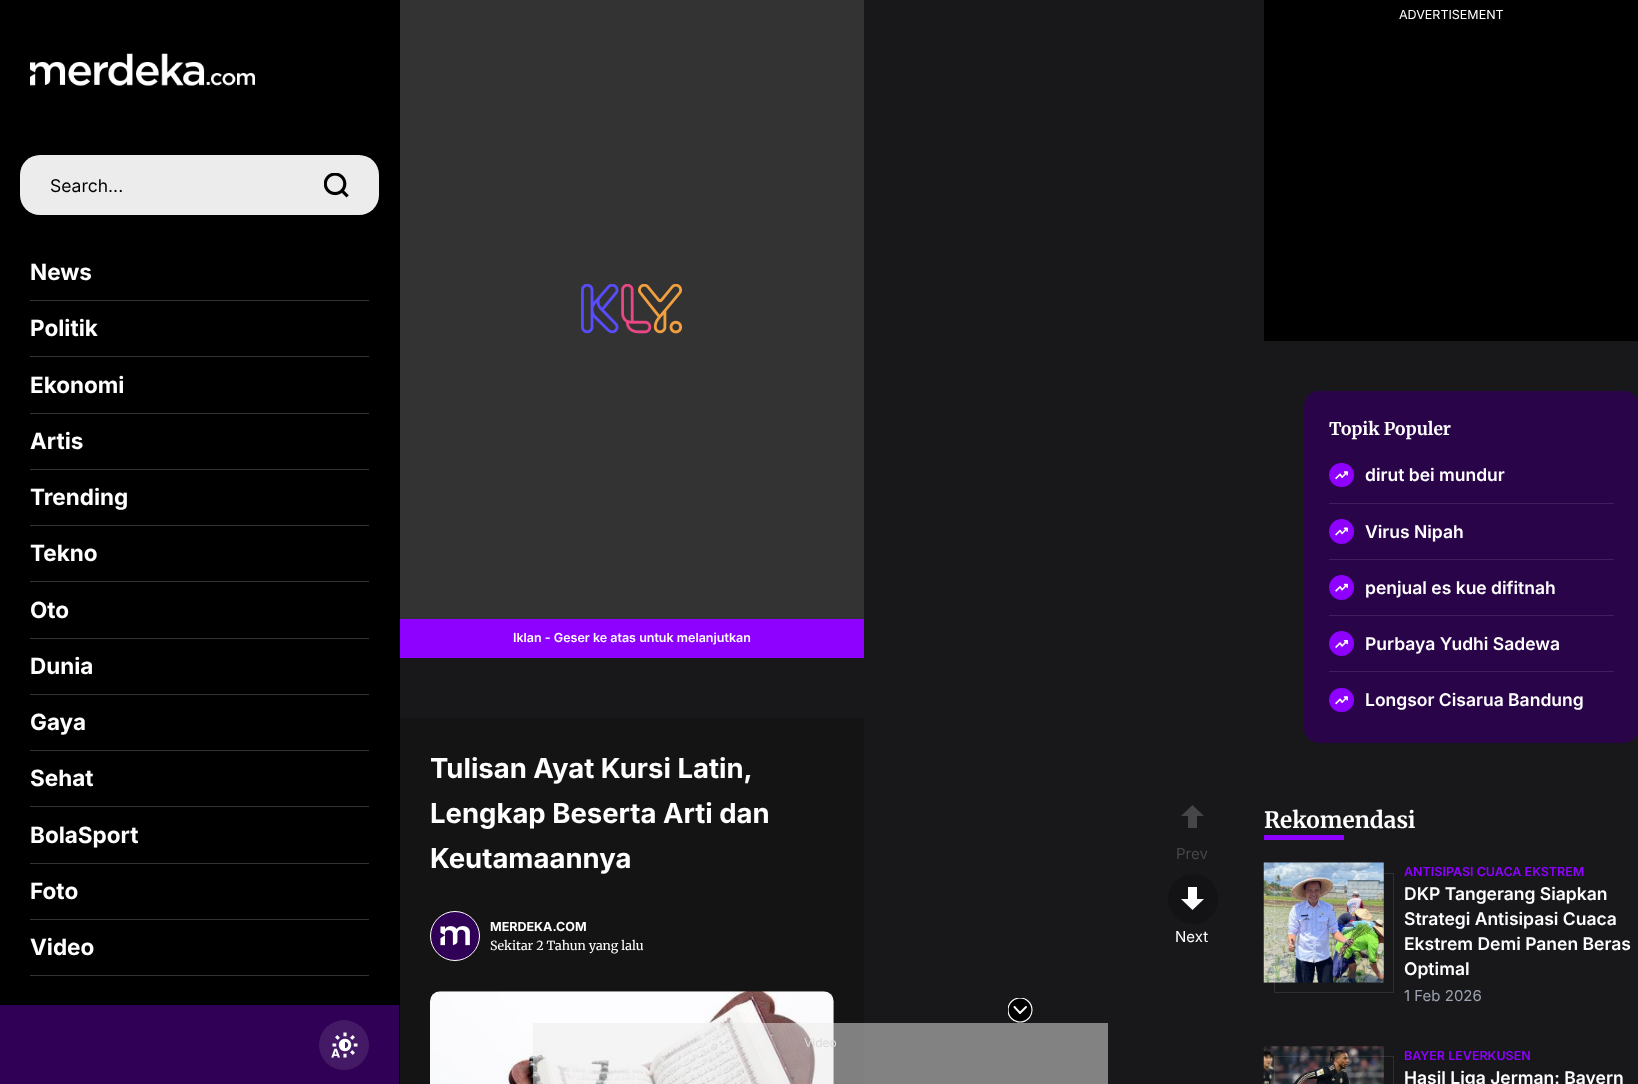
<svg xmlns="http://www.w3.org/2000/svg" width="1638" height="1084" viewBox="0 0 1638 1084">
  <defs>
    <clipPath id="clip1"><path d="M1008 998h25v25H1008z"/></clipPath>
  </defs>
  <rect width="100%" height="100%" fill="#18181b"/>
  <path d="M0 0h399v1005H0z" fill="#000"/>
  <path d="M399 0h1v1084H399z" fill="#000"/>
  <image x="30" y="53" width="225" height="33" href="img/1.png"/>
  <rect x="20" y="155" width="359" height="60" rx="20" fill="#ececec"/>
  <image x="324" y="173" width="25" height="25" href="img/2.png"/>
  <path d="M30 300h339v1H30z" fill="#333"/>
  <path d="M30 356h339v1H30z" fill="#333"/>
  <path d="M30 413h339v1H30z" fill="#333"/>
  <path d="M30 469h339v1H30z" fill="#333"/>
  <path d="M30 525h339v1H30z" fill="#333"/>
  <path d="M30 581h339v1H30z" fill="#333"/>
  <path d="M30 638h339v1H30z" fill="#333"/>
  <path d="M30 694h339v1H30z" fill="#333"/>
  <path d="M30 750h339v1H30z" fill="#333"/>
  <path d="M30 806h339v1H30z" fill="#333"/>
  <path d="M30 863h339v1H30z" fill="#333"/>
  <path d="M30 919h339v1H30z" fill="#333"/>
  <path d="M30 975h339v1H30z" fill="#333"/>
  <path d="M0 1005h399v79H0z" fill="#2f0055"/>
  <circle cx="344" cy="1045" r="25" fill="#441a66"/>
  <image x="331" y="1032" width="27" height="26" href="img/3.png"/>
  <path d="M1188 828H1197V816H1204L1192.5 805L1181 816H1188Z" fill="#464649"/>
  <circle cx="1193" cy="899" r="25" fill="#131316"/>
  <path d="M1188 887H1197V899H1204L1192.5 910L1181 899H1188Z" fill="#fff"/>
  <path d="M1264 0h374v341H1264z" fill="#000"/>
  <rect x="1304" y="391" width="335" height="352" rx="15" fill="#2f0055cc"/>
  <image x="1329" y="463" width="25" height="24" href="img/4.png"/>
  <path d="M1329 503h285v1H1329z" fill="#401e5c"/>
  <image x="1329" y="519" width="25" height="25" href="img/5.png"/>
  <path d="M1329 559h285v1H1329z" fill="#401e5c"/>
  <image x="1329" y="575" width="25" height="25" href="img/6.png"/>
  <path d="M1329 615h285v1H1329z" fill="#401e5c"/>
  <image x="1329" y="631" width="25" height="25" href="img/7.png"/>
  <path d="M1329 671h285v1H1329z" fill="#401e5c"/>
  <image x="1329" y="688" width="25" height="24" href="img/4.png"/>
  <path d="M1264 835h80v5H1264z" fill="#8e01ff"/>
  <image x="1263" y="862" width="121" height="121" href="img/8.png"/>
  <path d="M1274.5 873.5h119v119H1274.5z" fill="none" stroke="#ffffff1a"/>
  <image x="1263" y="1046" width="121" height="38" href="img/9.png"/>
  <path d="M1274.5 1056.5h119v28H1274.5z" fill="none" stroke="#ffffff1a"/>
  <path d="M400 0h464v619H400z" fill="#333"/>
  <image x="581" y="284" width="102" height="50" href="img/10.png"/>
  <path d="M400 619h464v39H400z" fill="#8e01ff"/>
  <path d="M400 718h464v366H400z" fill="#141414"/>
  <circle cx="455" cy="936" r="24.5" fill="#2f0055" stroke="#fff"/>
  <image x="440" y="926" width="30" height="20" href="img/11.png"/>
  <image x="430" y="991" width="404" height="93" href="img/12.png"/>
  <path d="M533 1023h575v61H533z" fill="#ececec80"/>
  <circle cx="1020" cy="1010" r="12" fill="#000"/>
  <g clip-path="url(#clip1)">
    <circle cx="1020" cy="1010" r="12" fill="none" stroke="#fff" stroke-width="1.2"/>
  </g>
  <path d="M1014.5 1007L1020 1013L1026 1007" fill="none" stroke="#fff" stroke-width="1.9" stroke-linecap="round" stroke-linejoin="round"/>
  <text x="50" y="192" font-family="Inter" font-size="17.5" fill="#000">Search...</text>
  <g font-family="Inter" font-size="22.5" font-weight="bold" fill="#fff">
    <text x="30" y="280">News</text>
    <text x="30" y="336">Politik</text>
    <text x="30" y="393">Ekonomi</text>
    <text x="30" y="449">Artis</text>
    <text x="30" y="505">Trending</text>
    <text x="30" y="561">Tekno</text>
    <text x="30" y="618">Oto</text>
    <text x="30" y="674">Dunia</text>
    <text x="30" y="730">Gaya</text>
    <text x="30" y="786">Sehat</text>
    <text x="30" y="843">BolaSport</text>
    <text x="30" y="899">Foto</text>
    <text x="30" y="955">Video</text>
  </g>
  <text x="1176" y="859" font-family="Inter" font-size="15" fill="#464649">Prev</text>
  <text x="1175" y="942" font-family="Inter" font-size="15" fill="#fff">Next</text>
  <text x="804" y="1047" font-family="Inter" font-size="12" fill="#dcd9d9">Video</text>
  <text x="1399" y="19" font-family="Inter" font-size="12.5" fill="#fff">ADVERTISEMENT</text>
  <text x="1329" y="435" font-family="Merriweather" font-size="17.5" font-weight="bold" fill="#fff">Topik Populer</text>
  <g font-family="Inter" font-size="17.5" font-weight="600" fill="#fff">
    <text x="1365" y="481">dirut bei mundur</text>
    <text x="1365" y="538">Virus Nipah</text>
    <text x="1365" y="594">penjual es kue difitnah</text>
    <text x="1365" y="650">Purbaya Yudhi Sadewa</text>
    <text x="1365" y="706">Longsor Cisarua Bandung</text>
  </g>
  <text x="1264" y="828" font-family="Merriweather" font-size="22.5" font-weight="bold" fill="#fff">Rekomendasi</text>
  <text x="1404" y="876" font-family="Inter" font-size="12.5" font-weight="600" fill="#8e01ff">ANTISIPASI CUACA EKSTREM</text>
  <g font-family="Inter" font-size="17.5" font-weight="600" fill="#fff">
    <text x="1404" y="900">DKP Tangerang Siapkan</text>
    <text x="1404" y="925">Strategi Antisipasi Cuaca</text>
    <text x="1404" y="950">Ekstrem Demi Panen Beras</text>
    <text x="1404" y="975">Optimal</text>
  </g>
  <text x="1404" y="1001" font-family="Inter" font-size="15" fill="#9ca3af">1 Feb 2026</text>
  <text x="1404" y="1060" font-family="Inter" font-size="12.5" font-weight="600" fill="#8e01ff">BAYER LEVERKUSEN</text>
  <text x="1404" y="1084" font-family="Inter" font-size="17.5" font-weight="600" fill="#fff">Hasil Liga Jerman: Bayern</text>
  <text x="513" y="642" font-family="Inter" font-size="12.5" font-weight="600" fill="#fff">Iklan - Geser ke atas untuk melanjutkan</text>
  <g font-family="Inter" font-size="27.5" font-weight="bold" fill="#fff">
    <text x="430" y="778">Tulisan Ayat Kursi Latin,</text>
    <text x="430" y="823">Lengkap Beserta Arti dan</text>
    <text x="430" y="868">Keutamaannya</text>
  </g>
  <text x="490" y="931" font-family="Inter" font-size="12.5" font-weight="bold" fill="#fff">MERDEKA.COM</text>
  <text x="490" y="950" font-family="Merriweather" font-size="12.5" fill="#fff">Sekitar 2 Tahun yang lalu</text>
</svg>
